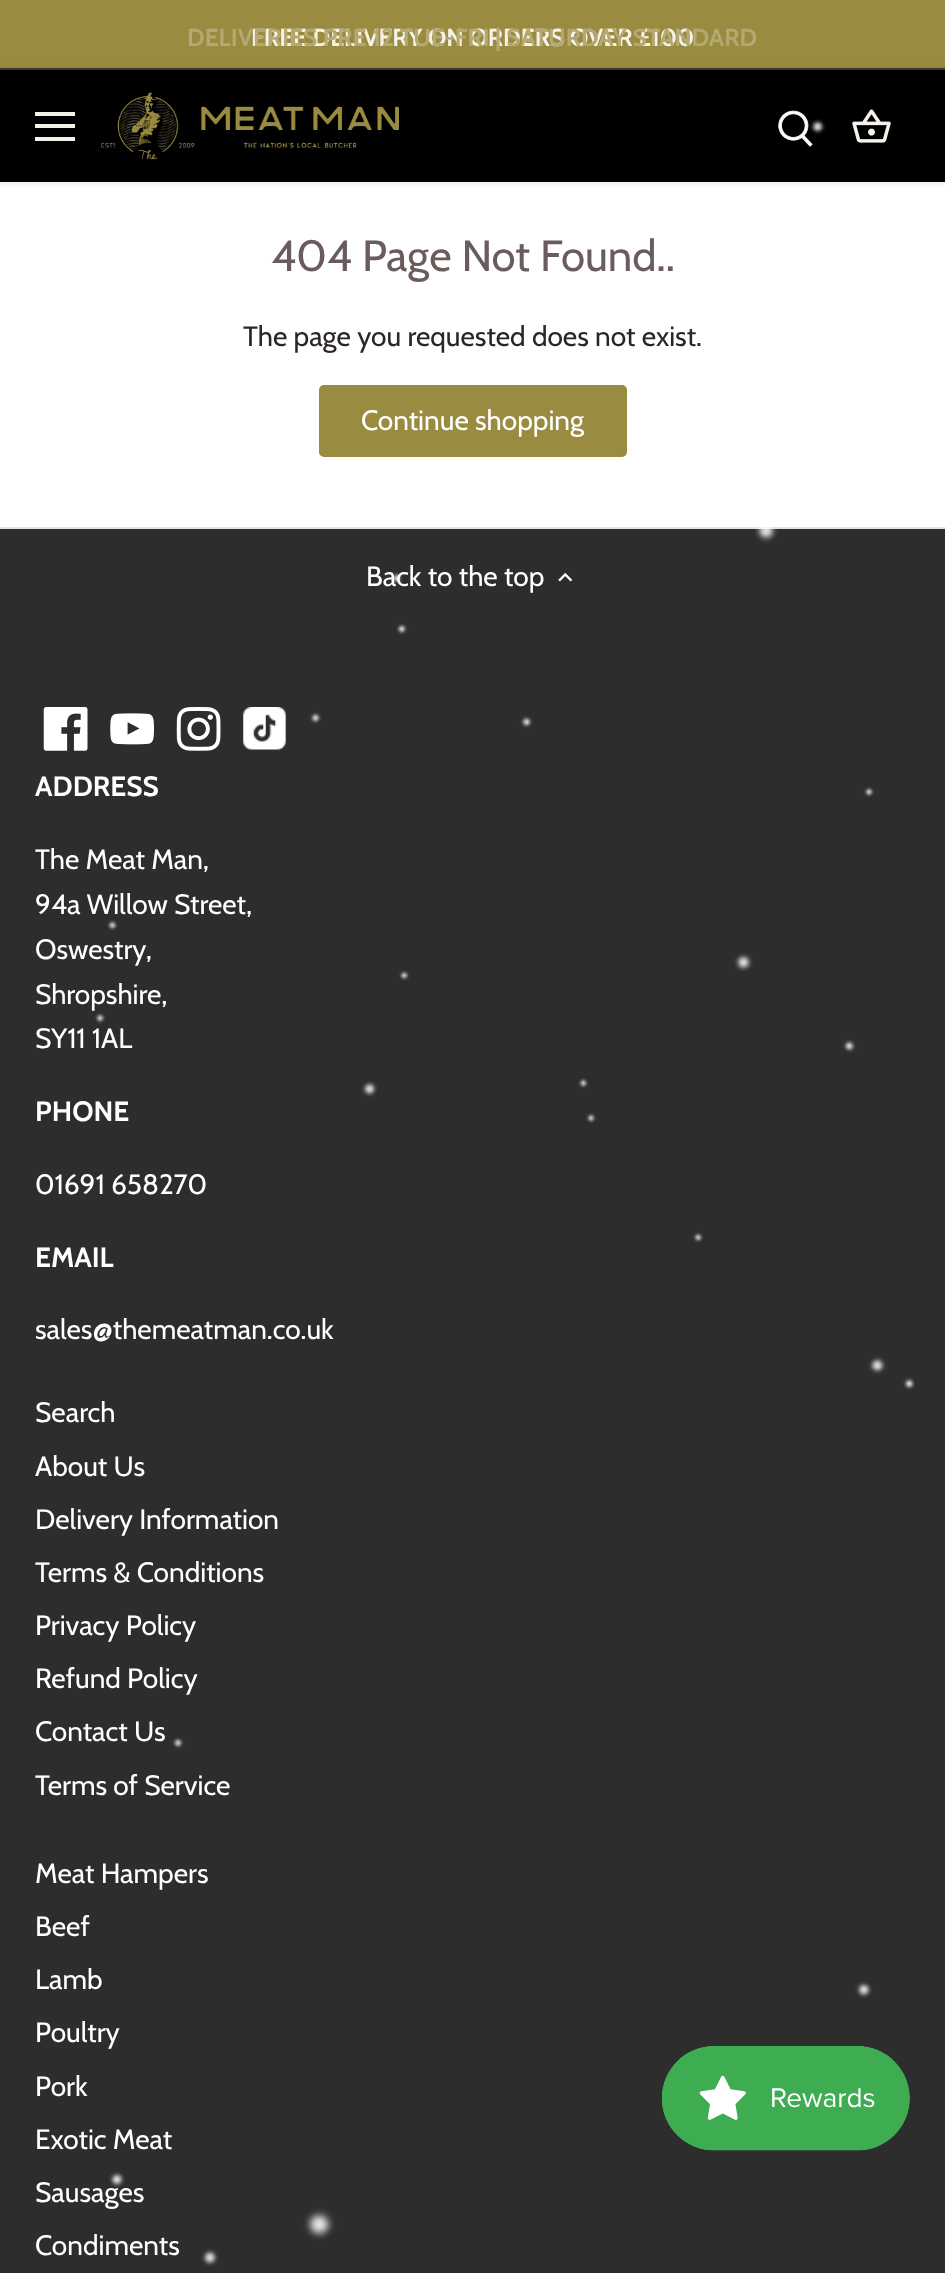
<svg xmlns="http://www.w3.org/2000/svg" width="945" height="2273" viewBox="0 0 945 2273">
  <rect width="100%" height="100%" fill="#2d2d2d"/>
  <path d="M0 182h945v345H0z" fill="#fff"/>
  <path d="M0 0h945v68H0z" fill="#998b40"/>
  <path d="M0 68h945v2H0z" fill="#3d3d3a"/>
  <path d="M-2 68h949v116H-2z" fill="#00000014" filter="blur(2.5px)"/>
  <path d="M0 70h945v112H0z" fill="#000"/>
  <path d="M35 112h40v4H35z" fill="#f4f2e9"/>
  <path d="M35 124h40v4H35z" fill="#f4f2e9"/>
  <path d="M35 137h40v4H35z" fill="#f4f2e9"/>
  <image x="101" y="92" width="298" height="68" href="img/1.png"/>
  <image x="778" y="110" width="35" height="37" href="img/2.png"/>
  <image x="852" y="109" width="39" height="34" href="img/3.png"/>
  <rect x="321" y="387" width="304" height="68" rx="3" fill="#998b40" stroke="#998b40" stroke-width="4"/>
  <path d="M0 527h945v2H0z" fill="#e2e2e2"/>
  <image x="558" y="572" width="15" height="10" href="img/4.png"/>
  <image x="43" y="707" width="45" height="44" href="img/5.png"/>
  <image x="110" y="713" width="44" height="32" href="img/6.png"/>
  <image x="176" y="707" width="45" height="44" href="img/7.png"/>
  <image x="243" y="707" width="43" height="43" href="img/8.png"/>
  <text x="251" y="46" font-family="Cabin" font-size="24.5" font-weight="bold" fill="#f4f2e9">FREE DELIVERY ON ORDERS OVER £100</text>
  <text x="187" y="46" font-family="Cabin" font-size="24.5" font-weight="bold" fill="#b4a972">DELIVERIES PRE 12 TUE-FRI | SATURDAY STANDARD</text>
  <text x="271" y="271" font-family="Cabin" font-size="43.75" fill="#6a5b5c">404 Page Not Found..</text>
  <text x="243" y="346" font-family="Cabin" font-size="28" fill="#2c2528">The page you requested does not exist.</text>
  <g font-family="Cabin" font-size="28" fill="#fff">
    <text x="361" y="430">Continue shopping</text>
    <text x="366" y="586">Back to the top</text>
  </g>
  <text x="35" y="796" font-family="Cabin" font-size="28" font-weight="bold" fill="#fff">ADDRESS</text>
  <g font-family="Cabin" font-size="28" fill="#fff">
    <text x="35" y="869">The Meat Man,</text>
    <text x="35" y="914">94a Willow Street,</text>
    <text x="35" y="959">Oswestry,</text>
    <text x="35" y="1004">Shropshire,</text>
    <text x="35" y="1048">SY11 1AL</text>
  </g>
  <text x="35" y="1121" font-family="Cabin" font-size="28" font-weight="bold" fill="#fff">PHONE</text>
  <text x="35" y="1194" font-family="Cabin" font-size="28" fill="#fff">01691 658270</text>
  <text x="35" y="1267" font-family="Cabin" font-size="28" font-weight="bold" fill="#fff">EMAIL</text>
  <g font-family="Cabin" font-size="28" fill="#fff">
    <text x="35" y="1339">sales@themeatman.co.uk</text>
    <text x="35" y="1422">Search</text>
    <text x="35" y="1476">About Us</text>
    <text x="35" y="1529">Delivery Information</text>
    <text x="35" y="1582">Terms &amp; Conditions</text>
    <text x="35" y="1635">Privacy Policy</text>
    <text x="35" y="1688">Refund Policy</text>
    <text x="35" y="1741">Contact Us</text>
    <text x="35" y="1795">Terms of Service</text>
    <text x="35" y="1883">Meat Hampers</text>
    <text x="35" y="1936">Beef</text>
    <text x="35" y="1989">Lamb</text>
    <text x="35" y="2042">Poultry</text>
    <text x="35" y="2096">Pork</text>
    <text x="35" y="2149">Exotic Meat</text>
    <text x="35" y="2202">Sausages</text>
    <text x="35" y="2255">Condiments</text>
  </g>
  <image x="94" y="119" width="822" height="2148" href="img/9.png"/>
  <image x="661" y="2046" width="249" height="105" href="img/10.png"/>
</svg>
